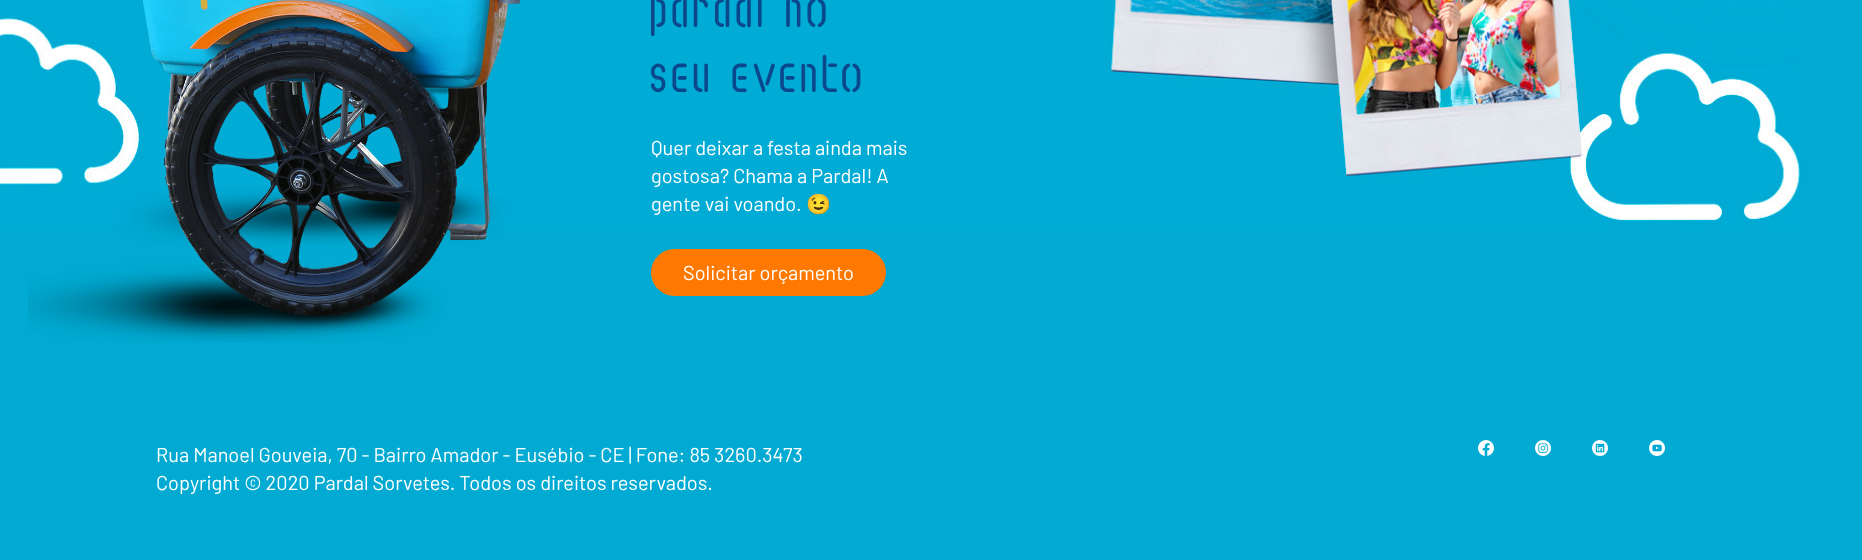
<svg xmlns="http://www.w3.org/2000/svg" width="1862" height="560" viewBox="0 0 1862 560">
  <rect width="100%" height="100%" fill="#00aad2"/>
  <image x="0" y="0" width="1801" height="227" href="img/1.png"/>
  <image x="28" y="0" width="492" height="343" href="img/2.png"/>
  <rect x="651" y="249" width="235" height="47" rx="23.5" fill="#ff7800"/>
  <image x="1478" y="440" width="16" height="16" href="img/3.png"/>
  <image x="1535" y="440" width="16" height="16" href="img/4.png"/>
  <image x="1592" y="440" width="16" height="16" href="img/5.png"/>
  <image x="1649" y="440" width="16" height="16" href="img/6.png"/>
  <g font-family="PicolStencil" font-size="54" fill="#0b478b">
    <text x="651" y="27">Pardal No</text>
    <text x="651" y="92">seu evento</text>
  </g>
  <g font-family="Barlow" font-size="20" fill="#fff">
    <text x="651" y="155">Quer deixar a festa ainda mais</text>
    <text x="651" y="183">gostosa? Chama a Pardal! A</text>
    <text x="651" y="211">gente vai voando.</text>
  </g>
  <text x="806" y="211" font-family="Noto Color Emoji" font-size="20" fill="#fff">😉</text>
  <g font-family="Barlow" font-size="20" fill="#fff">
    <text x="683" y="280">Solicitar orçamento</text>
    <text x="156" y="462">Rua Manoel Gouveia, 70 - Bairro Amador - Eusébio - CE | Fone: 85 3260.3473</text>
    <text x="156" y="490">Copyright © 2020 Pardal Sorvetes. Todos os direitos reservados.</text>
  </g>
</svg>
